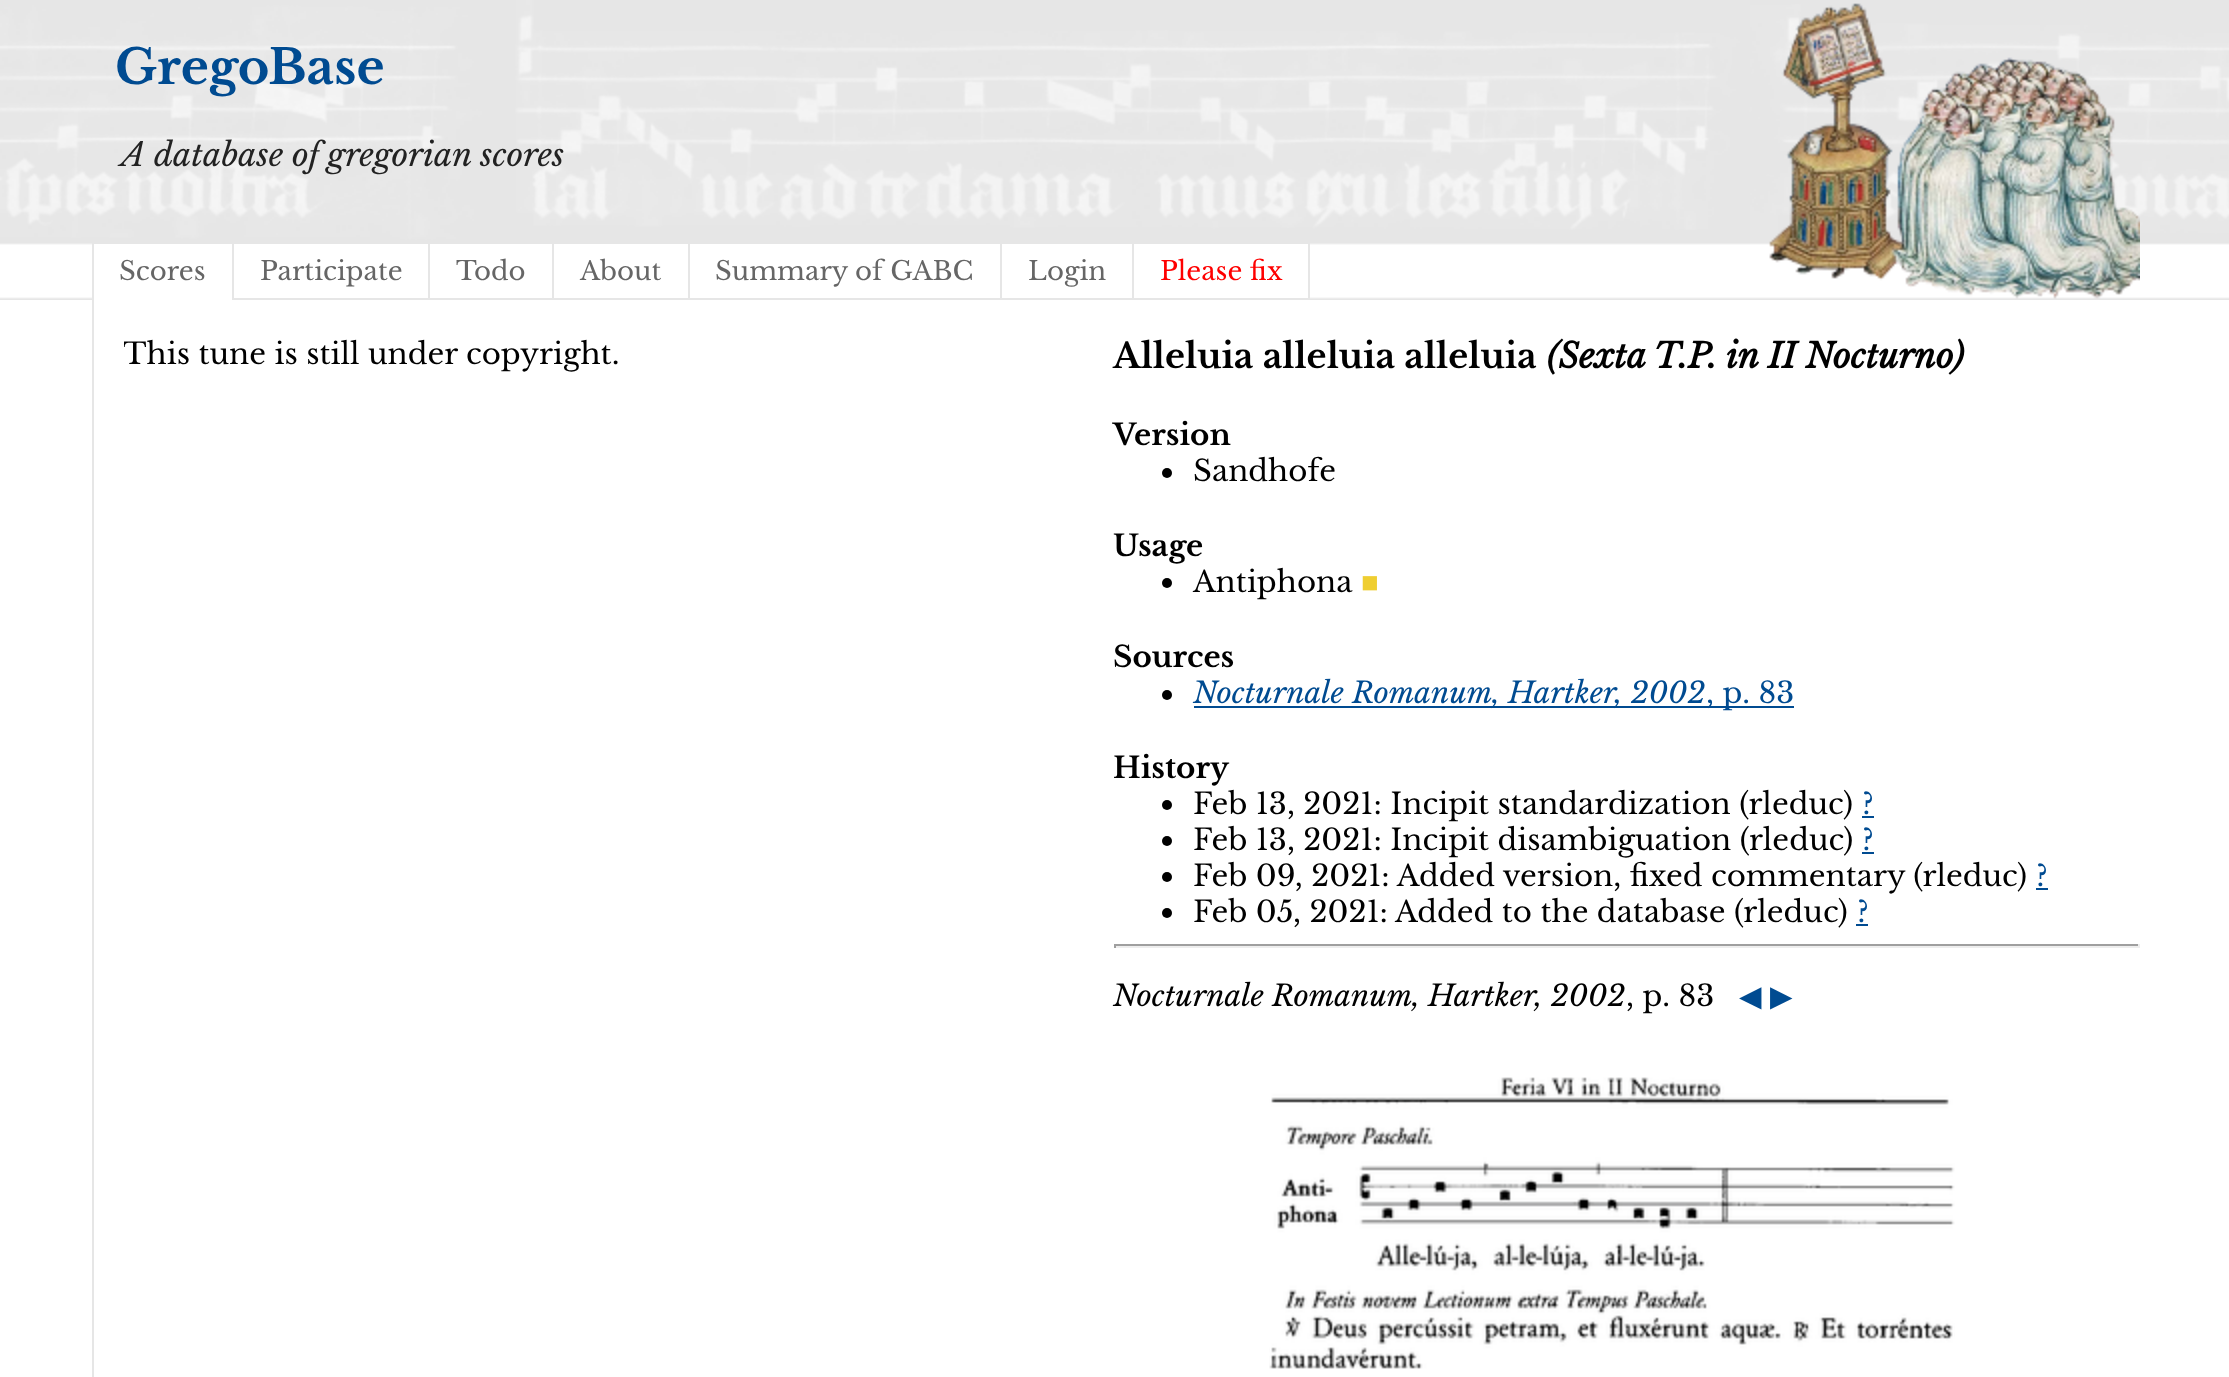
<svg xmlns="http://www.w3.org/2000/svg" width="2229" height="1377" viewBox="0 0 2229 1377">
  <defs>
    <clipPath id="clip1"><path d="M124 300h950v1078H124z"/></clipPath>
  </defs>
  <rect width="100%" height="100%" fill="#fff"/>
  <image x="0" y="0" width="2229" height="300" href="img/1.png"/>
  <path d="M94 244h138v54H94z" fill="#fff"/>
  <path d="M92 243h142v1H92z" fill="#e6e6e6"/>
  <path d="M92 298h142v2H92z" fill="#fff"/>
  <path d="M92 242h2v58H92z" fill="#e6e6e6"/>
  <path d="M233 243h196v56H233z" fill="#fff" stroke="#e6e6e6" stroke-width="2"/>
  <path d="M429 243h124v56H429z" fill="#fff" stroke="#e6e6e6" stroke-width="2"/>
  <path d="M553 243h136v56H553z" fill="#fff" stroke="#e6e6e6" stroke-width="2"/>
  <path d="M689 243h312v56H689z" fill="#fff" stroke="#e6e6e6" stroke-width="2"/>
  <path d="M1001 243h132v56H1001z" fill="#fff" stroke="#e6e6e6" stroke-width="2"/>
  <path d="M1133 243h176v56H1133z" fill="#fff" stroke="#e6e6e6" stroke-width="2"/>
  <image x="1769" y="3" width="371" height="296" href="img/2.png"/>
  <path d="M92 300h2v1077H92z" fill="#e6e6e6"/>
  <circle cx="1167" cy="473" r="5" fill="#000"/>
  <circle cx="1167" cy="583" r="5" fill="#000"/>
  <circle cx="1167" cy="695" r="5" fill="#000"/>
  <path d="M1194 706h600v2H1194z" fill="#004b91"/>
  <circle cx="1167" cy="805" r="5" fill="#000"/>
  <path d="M1862 816h12v2H1862z" fill="#004b91"/>
  <circle cx="1167" cy="841" r="5" fill="#000"/>
  <path d="M1862 852h12v2H1862z" fill="#004b91"/>
  <circle cx="1167" cy="877" r="5" fill="#000"/>
  <path d="M2036 888h12v2H2036z" fill="#004b91"/>
  <circle cx="1167" cy="913" r="5" fill="#000"/>
  <path d="M1856 924h12v2H1856z" fill="#004b91"/>
  <path d="M1114 944h1026v2H1114z" fill="#9f9f9f"/>
  <path d="M2138 944h2v4H2138z" fill="#eee"/>
  <path d="M1114 946h1026v2H1114z" fill="#eee"/>
  <path d="M1114 944h2v4H1114z" fill="#9f9f9f"/>
  <image x="1269" y="1077" width="686" height="292" href="img/3.png"/>
  <text x="115" y="84" font-family="Libre Baskerville" font-size="48" font-weight="bold" fill="#004b91">GregoBase</text>
  <text x="121" y="166" font-family="Libre Baskerville" font-size="32" font-style="italic" fill="#222">A database of gregorian scores</text>
  <g font-family="Libre Baskerville" font-size="26" fill="#666">
    <text x="119" y="280">Scores</text>
    <text x="260" y="280">Participate</text>
    <text x="456" y="280">Todo</text>
    <text x="580" y="280">About</text>
    <text x="715" y="280">Summary of GABC</text>
    <text x="1028" y="280">Login</text>
  </g>
  <text x="1160" y="280" font-family="Libre Baskerville" font-size="26" fill="#f00">Please fix</text>
  <g clip-path="url(#clip1)">
    <text x="123" y="364" font-family="Libre Baskerville" font-size="29.3" fill="#000">This tune is still under copyright.</text>
  </g>
  <text x="1113" y="368" font-family="Libre Baskerville" font-size="34.25" font-weight="bold" fill="#000">Alleluia alleluia alleluia</text>
  <text x="1547" y="368" font-family="Libre Baskerville" font-size="34.25" font-weight="bold" font-style="italic" fill="#000">(Sexta T.P. in II Nocturno)</text>
  <text x="1113" y="445" font-family="Libre Baskerville" font-size="29.3" font-weight="bold" fill="#000">Version</text>
  <text x="1193" y="481" font-family="Libre Baskerville" font-size="29.3" fill="#000">Sandhofe</text>
  <text x="1113" y="556" font-family="Libre Baskerville" font-size="29.3" font-weight="bold" fill="#000">Usage</text>
  <text x="1193" y="592" font-family="Libre Baskerville" font-size="29.3" fill="#000">Antiphona</text>
  <text x="1361" y="592" font-family="Liberation Serif" font-size="29.3" fill="#efce31">■</text>
  <text x="1113" y="667" font-family="Libre Baskerville" font-size="29.3" font-weight="bold" fill="#000">Sources</text>
  <text x="1193" y="703" font-family="Libre Baskerville" font-size="29.3" font-style="italic" fill="#004b91">Nocturnale Romanum, Hartker, 2002</text>
  <text x="1706" y="703" font-family="Libre Baskerville" font-size="29.3" fill="#004b91">, p. 83</text>
  <text x="1113" y="778" font-family="Libre Baskerville" font-size="29.3" font-weight="bold" fill="#000">History</text>
  <text x="1193" y="814" font-family="Libre Baskerville" font-size="29.3" fill="#000">Feb 13, 2021: Incipit standardization (rleduc)</text>
  <text x="1862" y="814" font-family="Libre Baskerville" font-size="29.3" fill="#004b91">?</text>
  <text x="1193" y="850" font-family="Libre Baskerville" font-size="29.3" fill="#000">Feb 13, 2021: Incipit disambiguation (rleduc)</text>
  <text x="1862" y="850" font-family="Libre Baskerville" font-size="29.3" fill="#004b91">?</text>
  <text x="1193" y="886" font-family="Libre Baskerville" font-size="29.3" fill="#000">Feb 09, 2021: Added version, fixed commentary (rleduc)</text>
  <text x="2036" y="886" font-family="Libre Baskerville" font-size="29.3" fill="#004b91">?</text>
  <text x="1193" y="922" font-family="Libre Baskerville" font-size="29.3" fill="#000">Feb 05, 2021: Added to the database (rleduc)</text>
  <text x="1857" y="922" font-family="Libre Baskerville" font-size="29.3" fill="#004b91">?</text>
  <text x="1113" y="1006" font-family="Libre Baskerville" font-size="29.3" font-style="italic" fill="#000">Nocturnale Romanum, Hartker, 2002</text>
  <text x="1626" y="1006" font-family="Libre Baskerville" font-size="29.3" fill="#000">, p. 83</text>
  <g font-family="DejaVu Sans" font-size="29.3" fill="#004b91">
    <text x="1739" y="1006">◀</text>
    <text x="1770" y="1006">▶</text>
  </g>
</svg>
